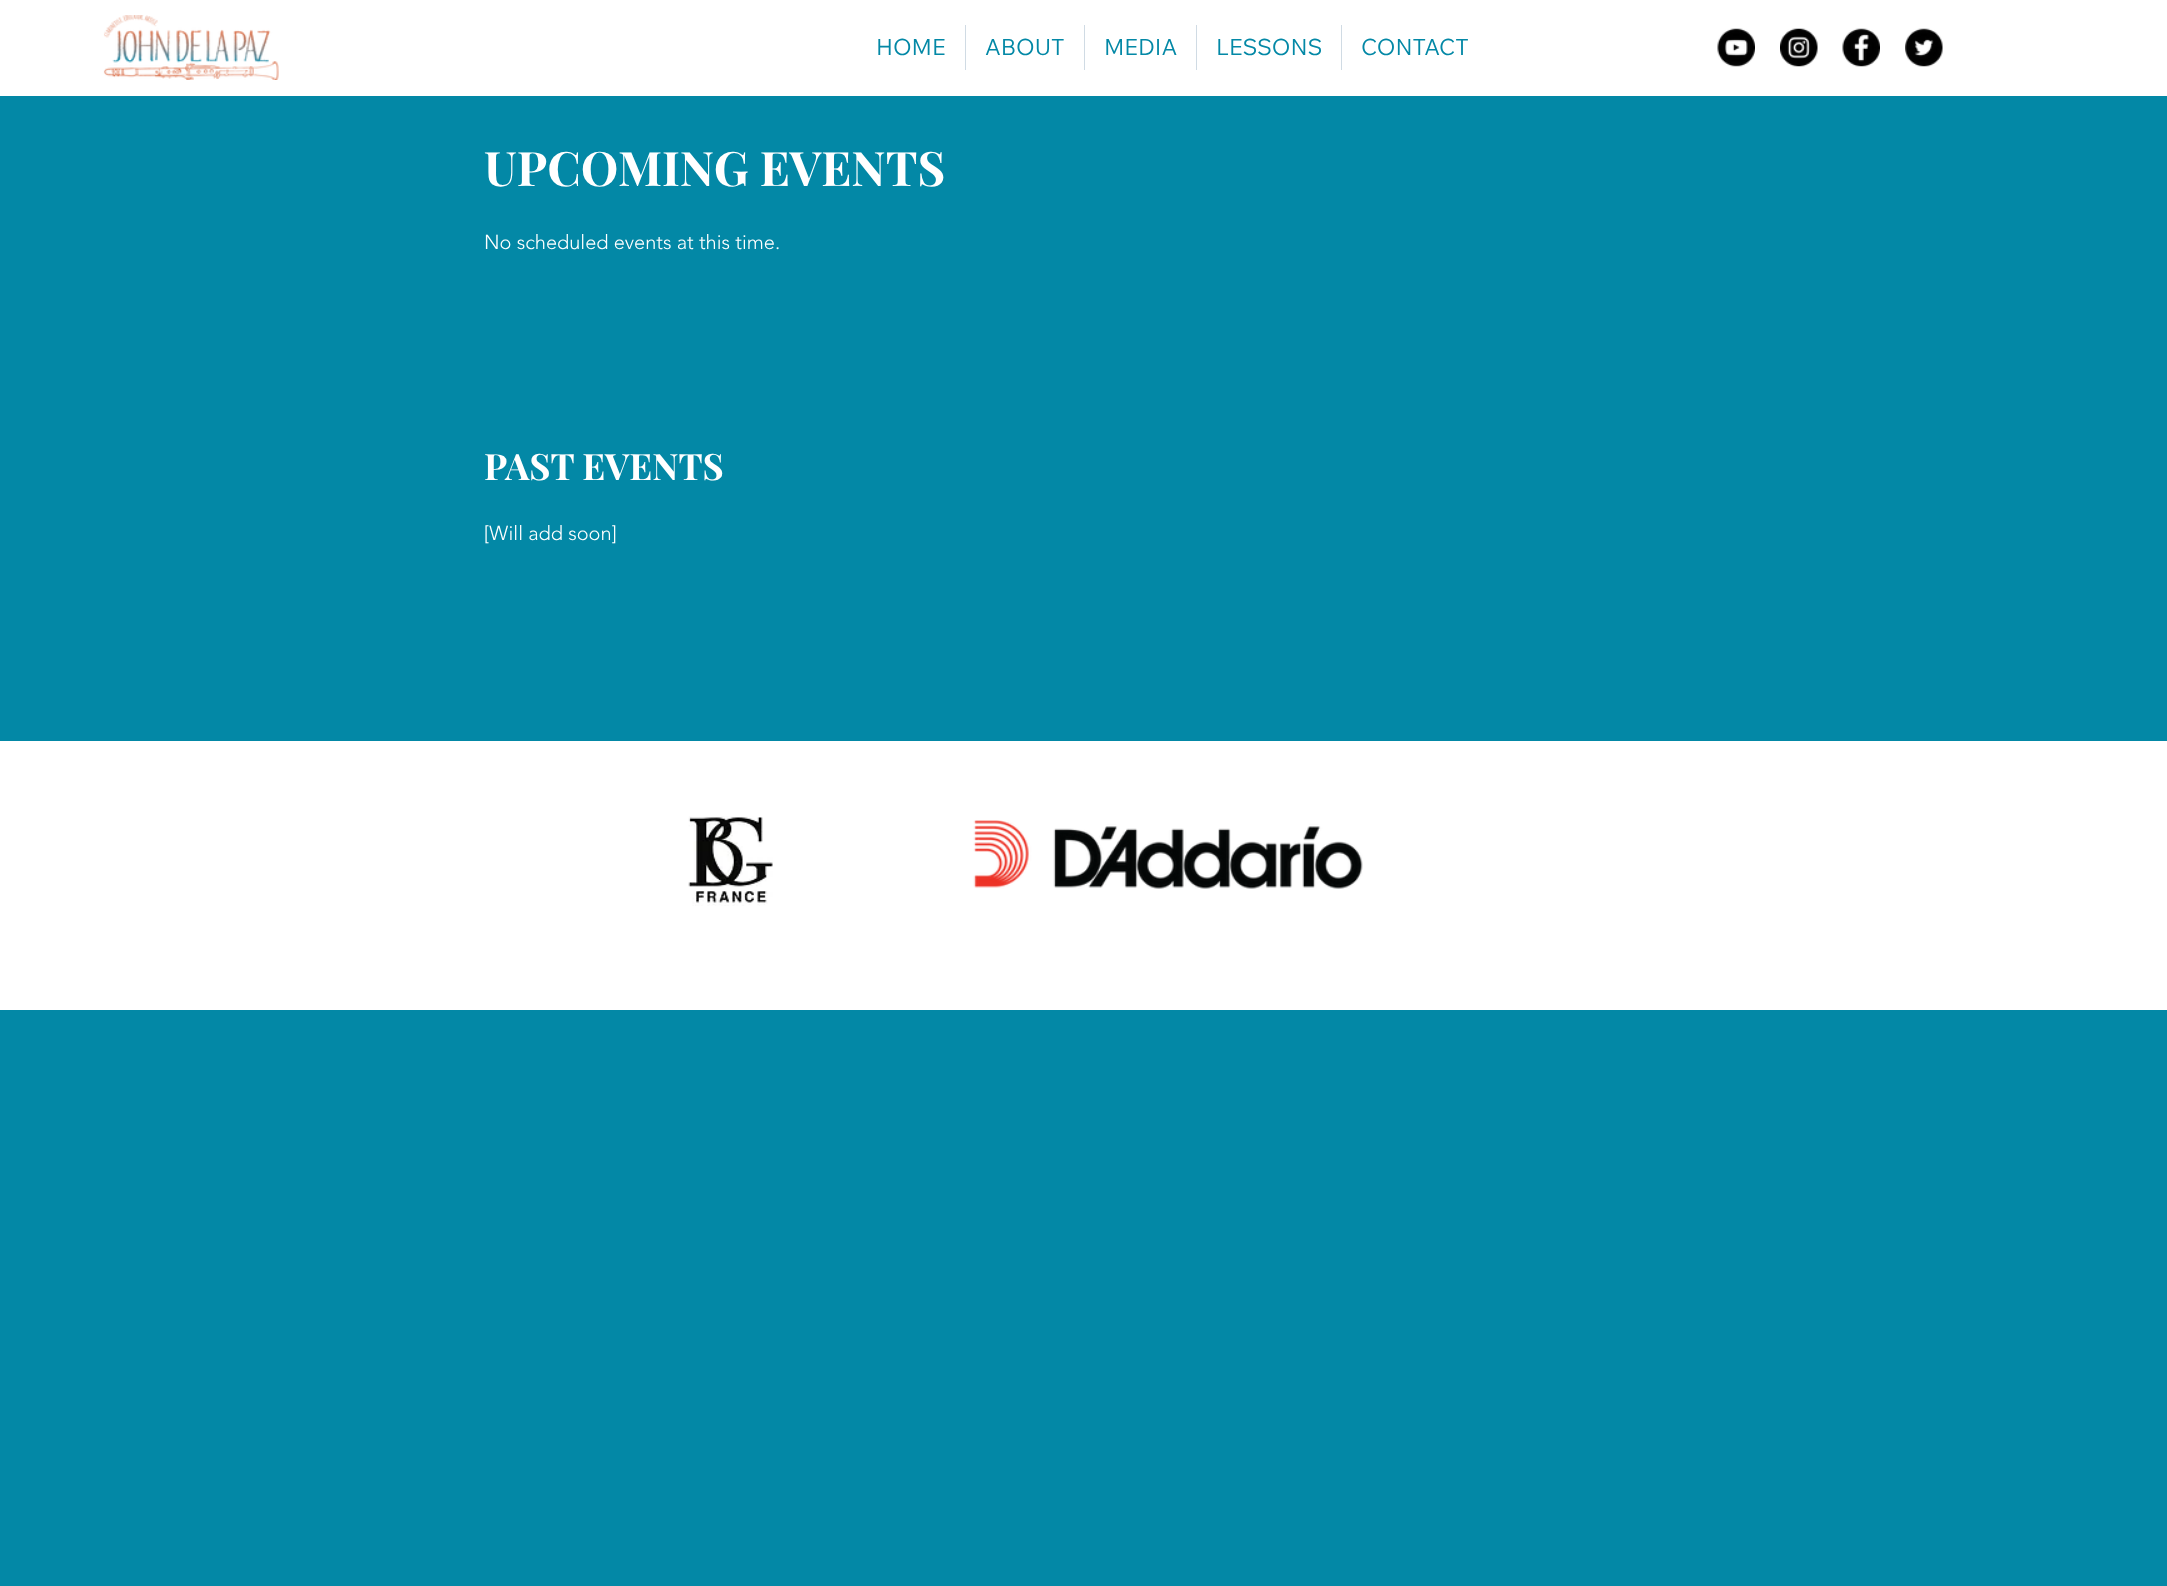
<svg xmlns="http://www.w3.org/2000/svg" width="2167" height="1586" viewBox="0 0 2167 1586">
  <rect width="100%" height="100%" fill="#0388a6"/>
  <path d="M0 0h2167v96H0z" fill="#fff"/>
  <image x="103" y="15" width="176" height="65" href="img/1.png"/>
  <path d="M965 25h1v45H965z" fill="#d0dbe4"/>
  <path d="M1084 25h1v45H1084z" fill="#d0dbe4"/>
  <path d="M1196 25h1v45H1196z" fill="#d0dbe4"/>
  <path d="M1341 25h1v45H1341z" fill="#d0dbe4"/>
  <image x="1717" y="28" width="38" height="39" href="img/2.png"/>
  <image x="1780" y="28" width="38" height="39" href="img/3.png"/>
  <image x="1842" y="28" width="38" height="39" href="img/4.png"/>
  <image x="1905" y="28" width="38" height="39" href="img/5.png"/>
  <path d="M0 741h2167v269H0z" fill="#fff"/>
  <image x="688" y="816" width="85" height="90" href="img/6.png"/>
  <image x="973" y="820" width="390" height="69" href="img/7.png"/>
  <g font-family="Wix Madefor Text" font-size="22.5" fill="#0388a6">
    <text x="876" y="55">HOME</text>
    <text x="985" y="55">ABOUT</text>
    <text x="1104" y="55">MEDIA</text>
    <text x="1216" y="55">LESSONS</text>
    <text x="1361" y="55">CONTACT</text>
  </g>
  <text x="484" y="186" font-family="Playfair Display" font-size="47.5" font-weight="bold" fill="#fff">UPCOMING EVENTS</text>
  <text x="484" y="249" font-family="'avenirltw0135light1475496'" font-size="20" font-weight="300" fill="#fff">No scheduled events at this time.</text>
  <text x="484" y="480" font-family="Playfair Display" font-size="36.25" font-weight="bold" fill="#fff">PAST EVENTS</text>
  <text x="484" y="540" font-family="'avenirltw0135light1475496'" font-size="20" font-weight="300" fill="#fff">[Will add soon]</text>
</svg>
